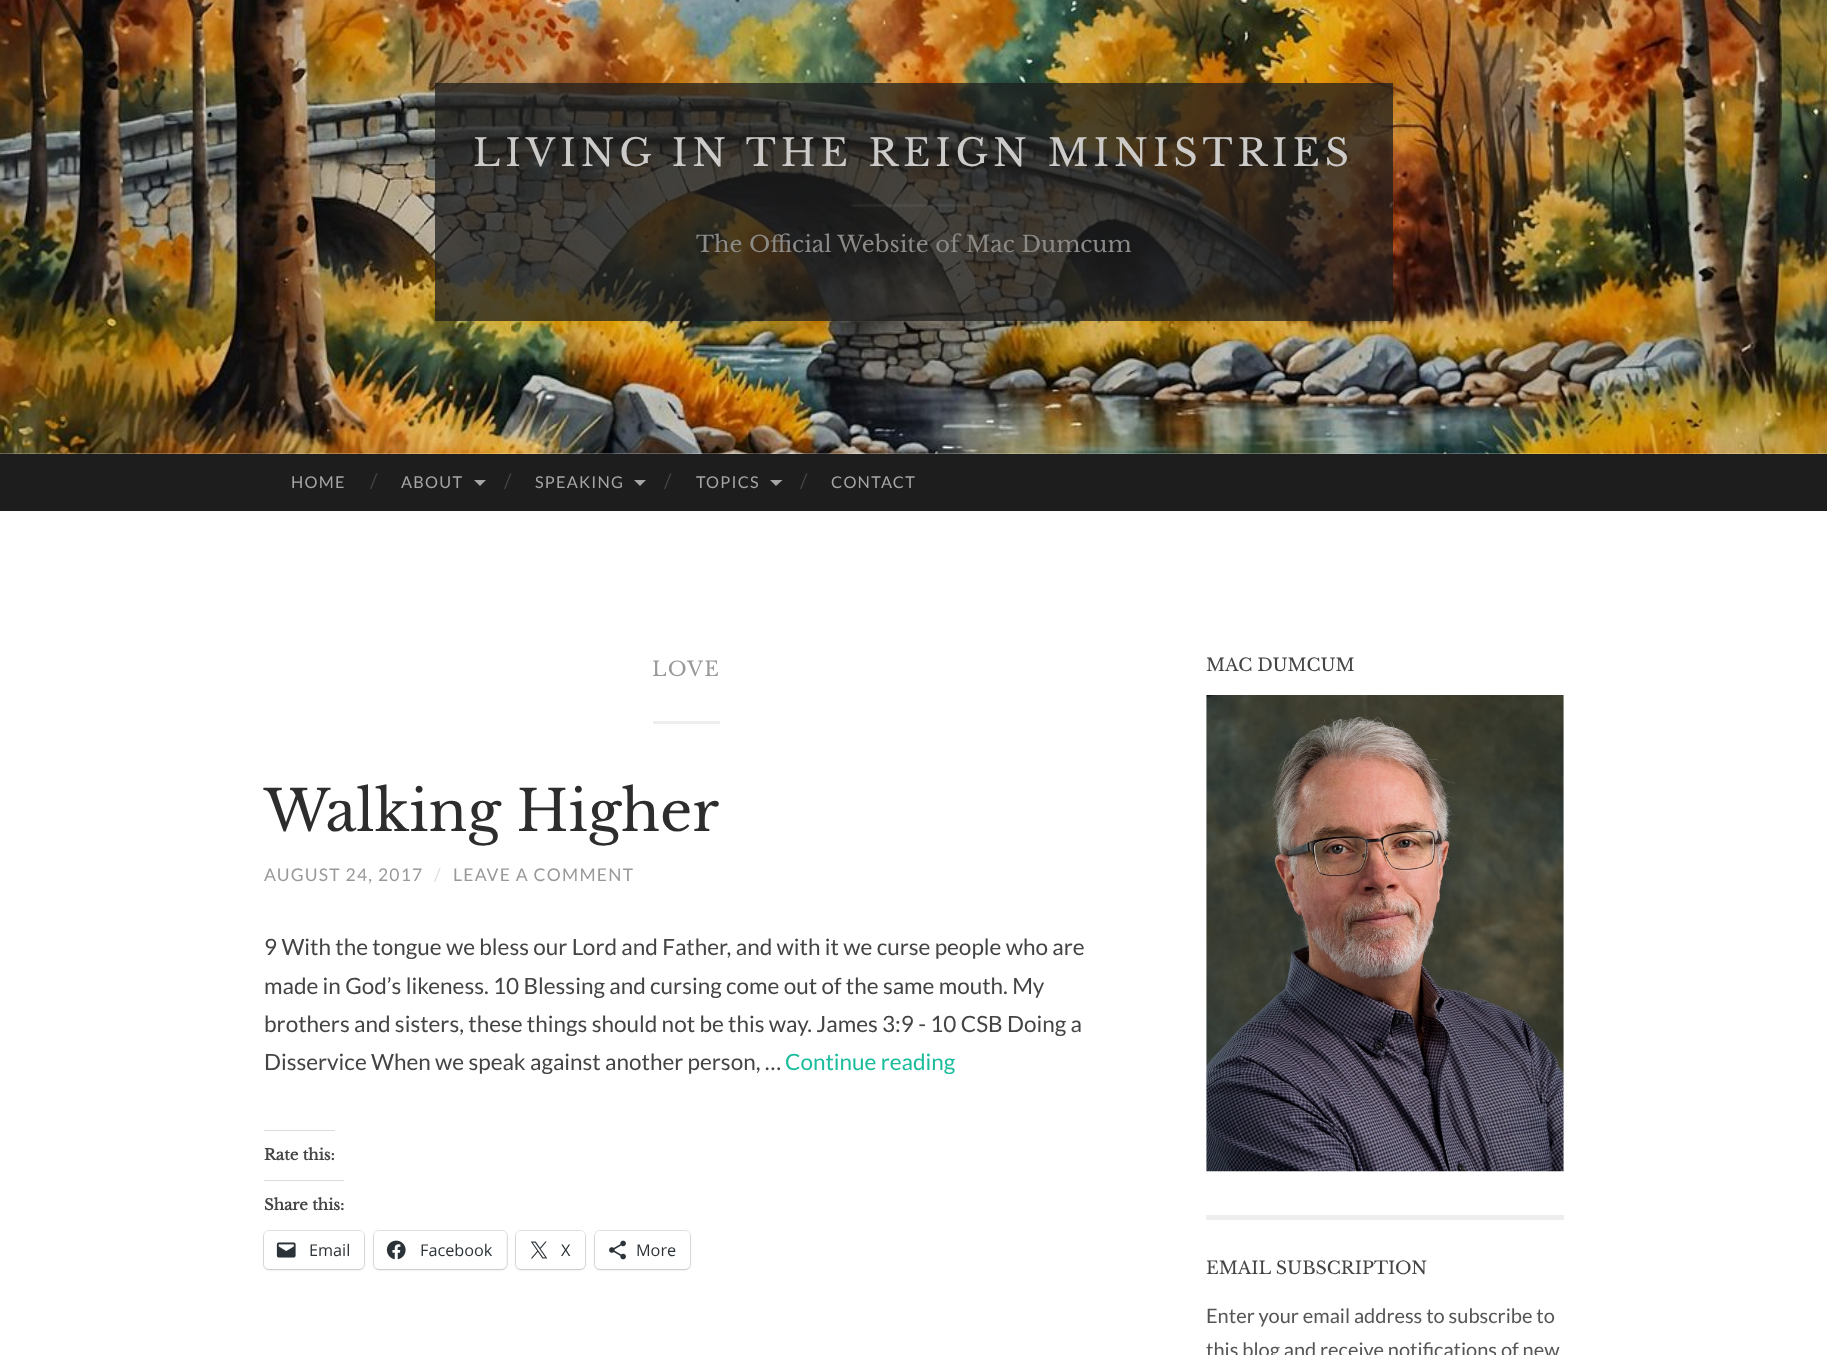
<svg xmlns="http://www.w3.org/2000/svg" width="1827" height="1355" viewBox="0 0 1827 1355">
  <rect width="100%" height="100%" fill="#fff"/>
  <image x="0" y="0" width="1827" height="454" href="img/1.png"/>
  <path d="M435 83h958v238H435z" fill="#1d1d1dbf"/>
  <path d="M851 204h125v3H851z" fill="#ffffff0d"/>
  <path d="M0 454h1827v57H0z" fill="#1d1d1d"/>
  <path d="M474 480H486L480 486Z" fill="#a5a5a5"/>
  <path d="M634 480H646L640 486Z" fill="#a5a5a5"/>
  <path d="M770 480H782.5L776 486Z" fill="#a5a5a5"/>
  <path d="M653 721h67v3H653z" fill="#eee"/>
  <path d="M264 1130h71v1H264z" fill="#dcdcde"/>
  <path d="M264 1180h80v1H264z" fill="#dcdcde"/>
  <rect x="263.5" y="1230.5" width="101" height="39" rx="5.5" fill="none" stroke="#e0e0e0"/>
  <rect x="264" y="1233" width="100" height="37" rx="5" fill="#0000001f" filter="blur(1px)"/>
  <rect x="264" y="1231" width="100" height="38" rx="5" fill="#fff"/>
  <image x="276" y="1242" width="20" height="16" href="img/2.png"/>
  <rect x="373.5" y="1230.5" width="134" height="39" rx="5.5" fill="none" stroke="#e0e0e0"/>
  <rect x="374" y="1233" width="132" height="37" rx="5" fill="#0000001f" filter="blur(1px)"/>
  <rect x="374" y="1231" width="132" height="38" rx="5" fill="#fff"/>
  <image x="386" y="1240" width="20" height="20" href="img/3.png"/>
  <rect x="515.5" y="1230.5" width="70" height="39" rx="5.5" fill="none" stroke="#e0e0e0"/>
  <rect x="516" y="1233" width="69" height="37" rx="5" fill="#0000001f" filter="blur(1px)"/>
  <rect x="516" y="1231" width="69" height="38" rx="5" fill="#fff"/>
  <image x="530" y="1241" width="18" height="18" href="img/4.png"/>
  <rect x="594.5" y="1230.5" width="96" height="39" rx="5.5" fill="none" stroke="#e0e0e0"/>
  <rect x="595" y="1233" width="95" height="37" rx="5" fill="#0000001f" filter="blur(1px)"/>
  <rect x="595" y="1231" width="95" height="38" rx="5" fill="#fff"/>
  <image x="609" y="1240" width="17" height="20" href="img/5.png"/>
  <path d="M1206 1215h358v5H1206z" fill="#eee"/>
  <image x="1206" y="695" width="358" height="477" href="img/6.png"/>
  <text x="473" y="166" font-family="Libre Baskerville" font-size="37.5" letter-spacing="5" fill="#cccbc9">LIVING IN THE REIGN MINISTRIES</text>
  <text x="696" y="252" font-family="Libre Baskerville" font-size="22.5" fill="#8c8a87">The Official Website of Mac Dumcum</text>
  <text x="291" y="488" font-family="Lato" font-size="16.25" letter-spacing="1.25" fill="#a5a5a5">HOME</text>
  <text x="370" y="488" font-family="Lato" font-size="20" fill="#444">/</text>
  <text x="401" y="488" font-family="Lato" font-size="16.25" letter-spacing="1.25" fill="#a5a5a5">ABOUT</text>
  <text x="504" y="488" font-family="Lato" font-size="20" fill="#444">/</text>
  <text x="535" y="488" font-family="Lato" font-size="16.25" letter-spacing="1.25" fill="#a5a5a5">SPEAKING</text>
  <text x="664" y="488" font-family="Lato" font-size="20" fill="#444">/</text>
  <text x="696" y="488" font-family="Lato" font-size="16.25" letter-spacing="1.25" fill="#a5a5a5">TOPICS</text>
  <text x="800" y="488" font-family="Lato" font-size="20" fill="#444">/</text>
  <text x="831" y="488" font-family="Lato" font-size="16.25" letter-spacing="1.25" fill="#a5a5a5">CONTACT</text>
  <text x="652" y="676" font-family="Libre Baskerville" font-size="20" letter-spacing="1.25" fill="#999">LOVE</text>
  <text x="264" y="831" font-family="Libre Baskerville" font-size="56.25" fill="#2d2d2d">Walking Higher</text>
  <text x="264" y="881" font-family="Lato" font-size="17.5" letter-spacing="1.25" fill="#999">AUGUST 24, 2017</text>
  <text x="434" y="881" font-family="Lato" font-size="17.5" letter-spacing="1.25" fill="#ddd">/</text>
  <text x="453" y="881" font-family="Lato" font-size="17.5" letter-spacing="1.25" fill="#999">LEAVE A COMMENT</text>
  <g font-family="Lato" font-size="22.5" fill="#444">
    <text x="264" y="955">9 With the tongue we bless our Lord and Father, and with it we curse people who are</text>
    <text x="264" y="994">made in God’s likeness. 10 Blessing and cursing come out of the same mouth. My</text>
    <text x="264" y="1032">brothers and sisters, these things should not be this way. James 3:9 - 10 CSB Doing a</text>
    <text x="264" y="1070">Disservice When we speak against another person, …</text>
  </g>
  <text x="785" y="1070" font-family="Lato" font-size="22.5" fill="#1abc9c">Continue reading</text>
  <g font-family="Libre Baskerville" font-size="15" font-weight="bold" fill="#444">
    <text x="264" y="1160">Rate this:</text>
    <text x="264" y="1210">Share this:</text>
  </g>
  <g font-family="Open Sans" font-size="16.25" fill="#2c3338">
    <text x="309" y="1256">Email</text>
    <text x="420" y="1256">Facebook</text>
    <text x="561" y="1256">X</text>
    <text x="636" y="1256">More</text>
  </g>
  <g font-family="Libre Baskerville" font-size="17.5" fill="#444">
    <text x="1206" y="671">MAC DUMCUM</text>
    <text x="1206" y="1274">EMAIL SUBSCRIPTION</text>
  </g>
  <g font-family="Lato" font-size="20" fill="#555">
    <text x="1206" y="1323">Enter your email address to subscribe to</text>
    <text x="1206" y="1357">this blog and receive notifications of new</text>
  </g>
</svg>
